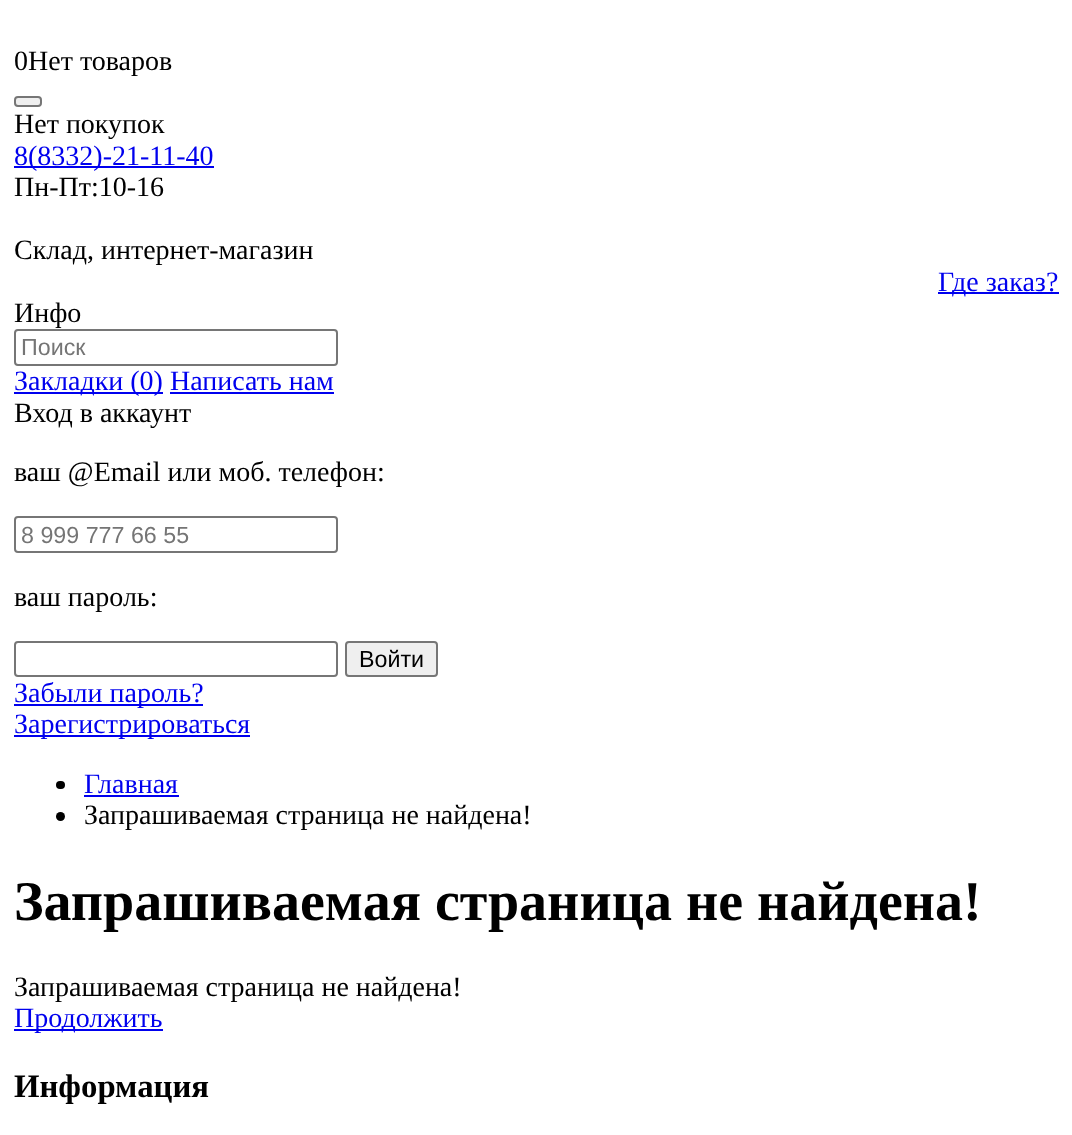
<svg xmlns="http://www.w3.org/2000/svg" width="1072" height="1135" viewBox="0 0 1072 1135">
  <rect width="100%" height="100%" fill="#fff"/>
  <rect x="15" y="97" width="26" height="9" rx="3" fill="#efefef" stroke="#767676" stroke-width="2"/>
  <path d="M14 166h200v2H14z" fill="#00e"/>
  <path d="M938 292h121v2H938z" fill="#00e"/>
  <rect x="15" y="330" width="322" height="35" rx="3" fill="none" stroke="#767676" stroke-width="2"/>
  <path d="M14 392h149v2H14z" fill="#00e"/>
  <path d="M170 392h164v2H170z" fill="#00e"/>
  <rect x="15" y="517" width="322" height="35" rx="3" fill="none" stroke="#767676" stroke-width="2"/>
  <rect x="15" y="642" width="322" height="34" rx="3" fill="none" stroke="#767676" stroke-width="2"/>
  <rect x="346" y="642" width="91" height="34" rx="3" fill="#efefef" stroke="#767676" stroke-width="2"/>
  <path d="M14 704h189v2H14z" fill="#00e"/>
  <path d="M14 735h236v2H14z" fill="#00e"/>
  <rect x="56" y="781" width="9" height="8" rx="4" fill="#000"/>
  <path d="M84 795h95v2H84z" fill="#00e"/>
  <circle cx="60.5" cy="816.5" r="4.5" fill="#000"/>
  <path d="M14 1029h149v2H14z" fill="#00e"/>
  <g font-family="Liberation Serif" font-size="28" fill="#000">
    <text x="14" y="70">0Нет товаров</text>
    <text x="14" y="133">Нет покупок</text>
  </g>
  <text x="14" y="165" font-family="Liberation Serif" font-size="28" fill="#00e">8(8332)-21-11-40</text>
  <g font-family="Liberation Serif" font-size="28" fill="#000">
    <text x="14" y="196">Пн-Пт:10-16</text>
    <text x="14" y="259">Склад, интернет-магазин</text>
  </g>
  <text x="938" y="291" font-family="Liberation Serif" font-size="28" fill="#00e">Где заказ?</text>
  <text x="14" y="322" font-family="Liberation Serif" font-size="28" fill="#000">Инфо</text>
  <text x="21" y="355" font-family="Liberation Sans" font-size="23.25" fill="#757575">Поиск</text>
  <text x="14" y="390" font-family="Liberation Serif" font-size="28" fill="#00e">Закладки (0) Написать нам</text>
  <g font-family="Liberation Serif" font-size="28" fill="#000">
    <text x="14" y="422">Вход в аккаунт</text>
    <text x="14" y="481">ваш @Email или моб. телефон:</text>
  </g>
  <text x="21" y="543" font-family="Liberation Sans" font-size="23.25" fill="#757575">8 999 777 66 55</text>
  <text x="14" y="606" font-family="Liberation Serif" font-size="28" fill="#000">ваш пароль:</text>
  <text x="359" y="667" font-family="Liberation Sans" font-size="23.25" fill="#000">Войти</text>
  <g font-family="Liberation Serif" font-size="28" fill="#00e">
    <text x="14" y="702">Забыли пароль?</text>
    <text x="14" y="733">Зарегистрироваться</text>
    <text x="84" y="793">Главная</text>
  </g>
  <text x="84" y="824" font-family="Liberation Serif" font-size="28" fill="#000">Запрашиваемая страница не найдена!</text>
  <text x="14" y="920" font-family="Liberation Serif" font-size="56" font-weight="bold" fill="#000">Запрашиваемая страница не найдена!</text>
  <text x="14" y="996" font-family="Liberation Serif" font-size="28" fill="#000">Запрашиваемая страница не найдена!</text>
  <text x="14" y="1027" font-family="Liberation Serif" font-size="28" fill="#00e">Продолжить</text>
  <text x="14" y="1097" font-family="Liberation Serif" font-size="32.75" font-weight="bold" fill="#000">Информация</text>
</svg>
